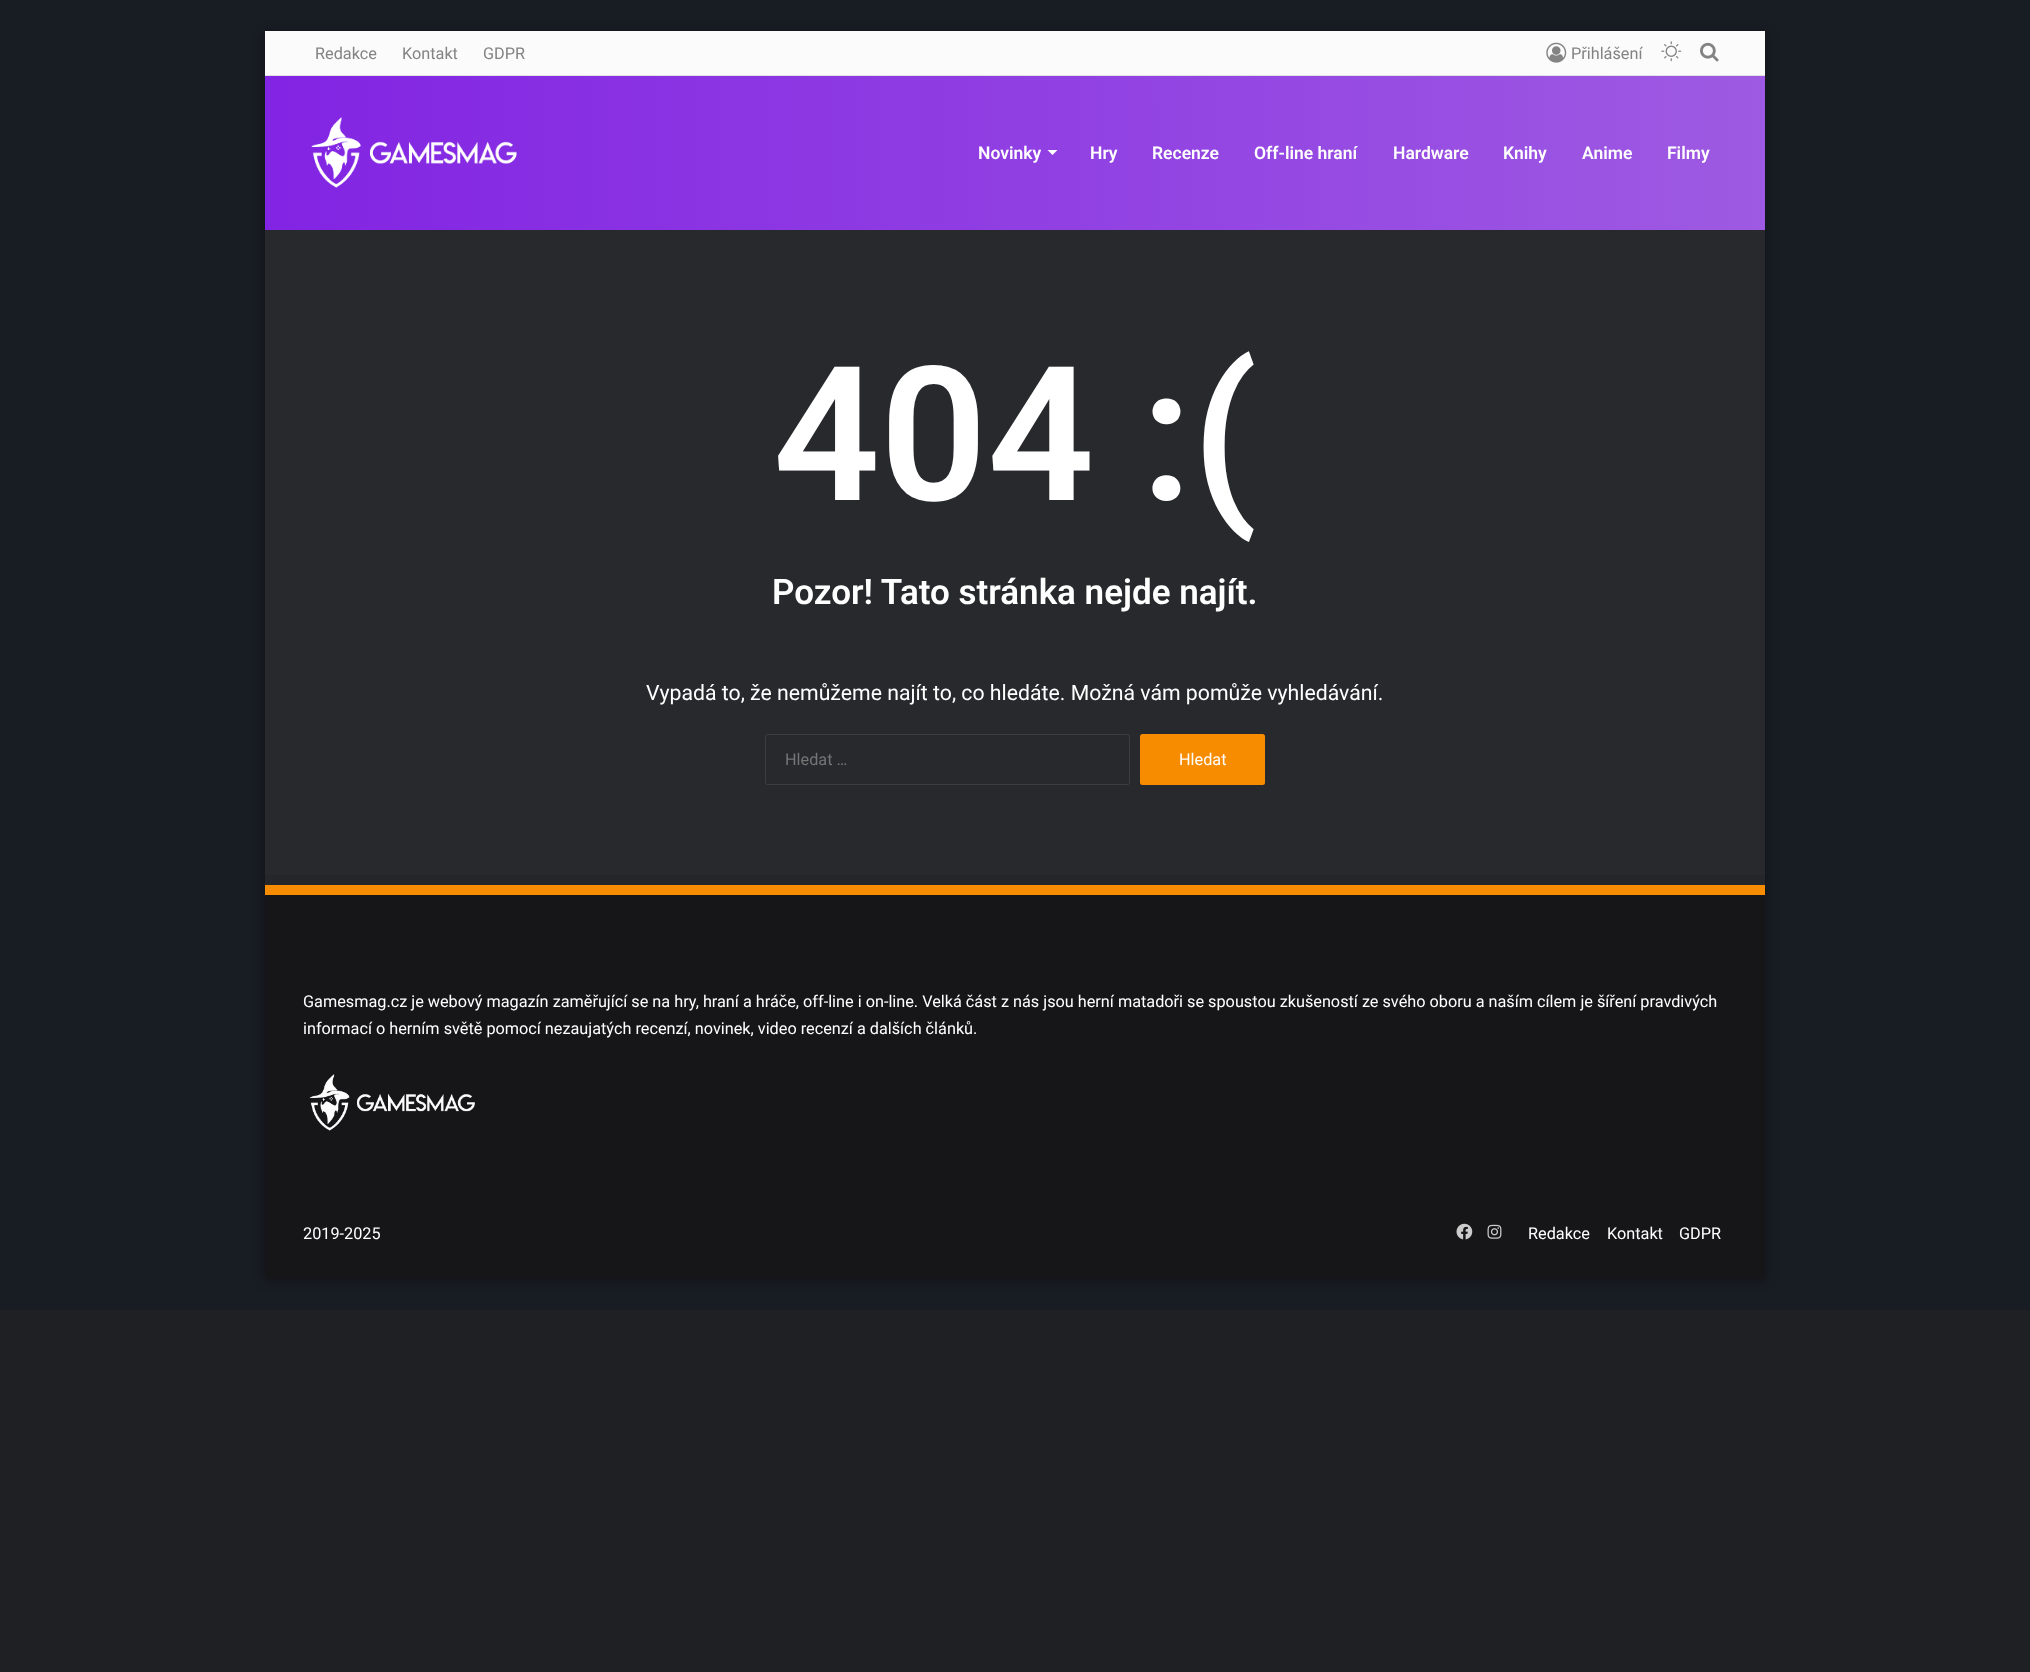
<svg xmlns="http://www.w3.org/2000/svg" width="2030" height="1672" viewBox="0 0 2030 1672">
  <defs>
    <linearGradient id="g1" gradientUnits="userSpaceOnUse" x1="265" y1="153" x2="1765" y2="152"><stop offset="0" stop-color="#8224e3"/><stop offset="1" stop-color="#9e5ae2"/></linearGradient>
  </defs>
  <rect width="100%" height="100%" fill="#1f2024"/>
  <path d="M0 0h2030v1310H0z" fill="#181c23"/>
  <path d="M265 33h1500v1247H265z" fill="#0000004d" filter="blur(6px)"/>
  <path d="M265 230h1500v645H265z" fill="#27292d"/>
  <path d="M265 31h1500v44H265z" fill="#fbfbfb"/>
  <path d="M265 75h1500v1H265z" fill="#e2e2e2"/>
  <image x="1546" y="42" width="21" height="21" href="img/1.png"/>
  <image x="1661" y="41" width="21" height="21" href="img/2.png"/>
  <image x="1700" y="42" width="19" height="20" href="img/3.png"/>
  <path d="M265 76h1500v154H265z" fill="url(#g1)"/>
  <image x="311" y="117" width="206" height="71" href="img/4.png"/>
  <path d="M1047.5 150H1057.5L1052.5 155Z" fill="#fff"/>
  <rect x="765.5" y="734.5" width="364" height="50" rx="2" fill="none" stroke="#3d3e42"/>
  <rect x="1140" y="734" width="125" height="51" rx="2.5" fill="#f88c00"/>
  <path d="M265 895h1500v384H265z" fill="#161619"/>
  <path d="M265 875h1500v10H265z" fill="#24262a"/>
  <path d="M265 885h1500v10H265z" fill="#f88c00"/>
  <image x="309" y="1074" width="166" height="57" href="img/5.png"/>
  <image x="1456" y="1223" width="17" height="17" href="img/6.png"/>
  <image x="1487" y="1224" width="15" height="15" href="img/7.png"/>
  <g font-family="Roboto" font-size="16.25" fill="#838383">
    <text x="315" y="59">Redakce</text>
    <text x="402" y="59">Kontakt</text>
    <text x="483" y="59">GDPR</text>
    <text x="1571" y="59">Přihlášení</text>
  </g>
  <g font-family="Roboto" font-size="17.5" font-weight="600" fill="#fff">
    <text x="978" y="159">Novinky</text>
    <text x="1090" y="159">Hry</text>
    <text x="1152" y="159">Recenze</text>
    <text x="1254" y="159">Off-line hraní</text>
    <text x="1393" y="159">Hardware</text>
    <text x="1503" y="159">Knihy</text>
    <text x="1582" y="159">Anime</text>
    <text x="1667" y="159">Filmy</text>
  </g>
  <text x="773" y="500" font-family="Roboto" font-size="187.5" font-weight="600" fill="#fff">404 :(</text>
  <text x="772" y="604" font-family="Roboto" font-size="35" font-weight="600" fill="#fff">Pozor! Tato stránka nejde najít.</text>
  <text x="646" y="700" font-family="Roboto" font-size="21.25" fill="#fff">Vypadá to, že nemůžeme najít to, co hledáte. Možná vám pomůže vyhledávání.</text>
  <text x="785" y="765" font-family="Roboto" font-size="16.25" fill="#757575">Hledat …</text>
  <g font-family="Roboto" font-size="16.25" fill="#fff">
    <text x="1179" y="765">Hledat</text>
    <text x="303" y="1007">Gamesmag.cz je webový magazín zaměřující se na hry, hraní a hráče, off-line i on-line. Velká část z nás jsou herní matadoři se spoustou zkušeností ze svého oboru a naším cílem je šíření pravdivých</text>
    <text x="303" y="1034">informací o herním světě pomocí nezaujatých recenzí, novinek, video recenzí a dalších článků.</text>
    <text x="303" y="1239">2019-2025</text>
    <text x="1528" y="1239">Redakce</text>
    <text x="1607" y="1239">Kontakt</text>
    <text x="1679" y="1239">GDPR</text>
  </g>
</svg>
